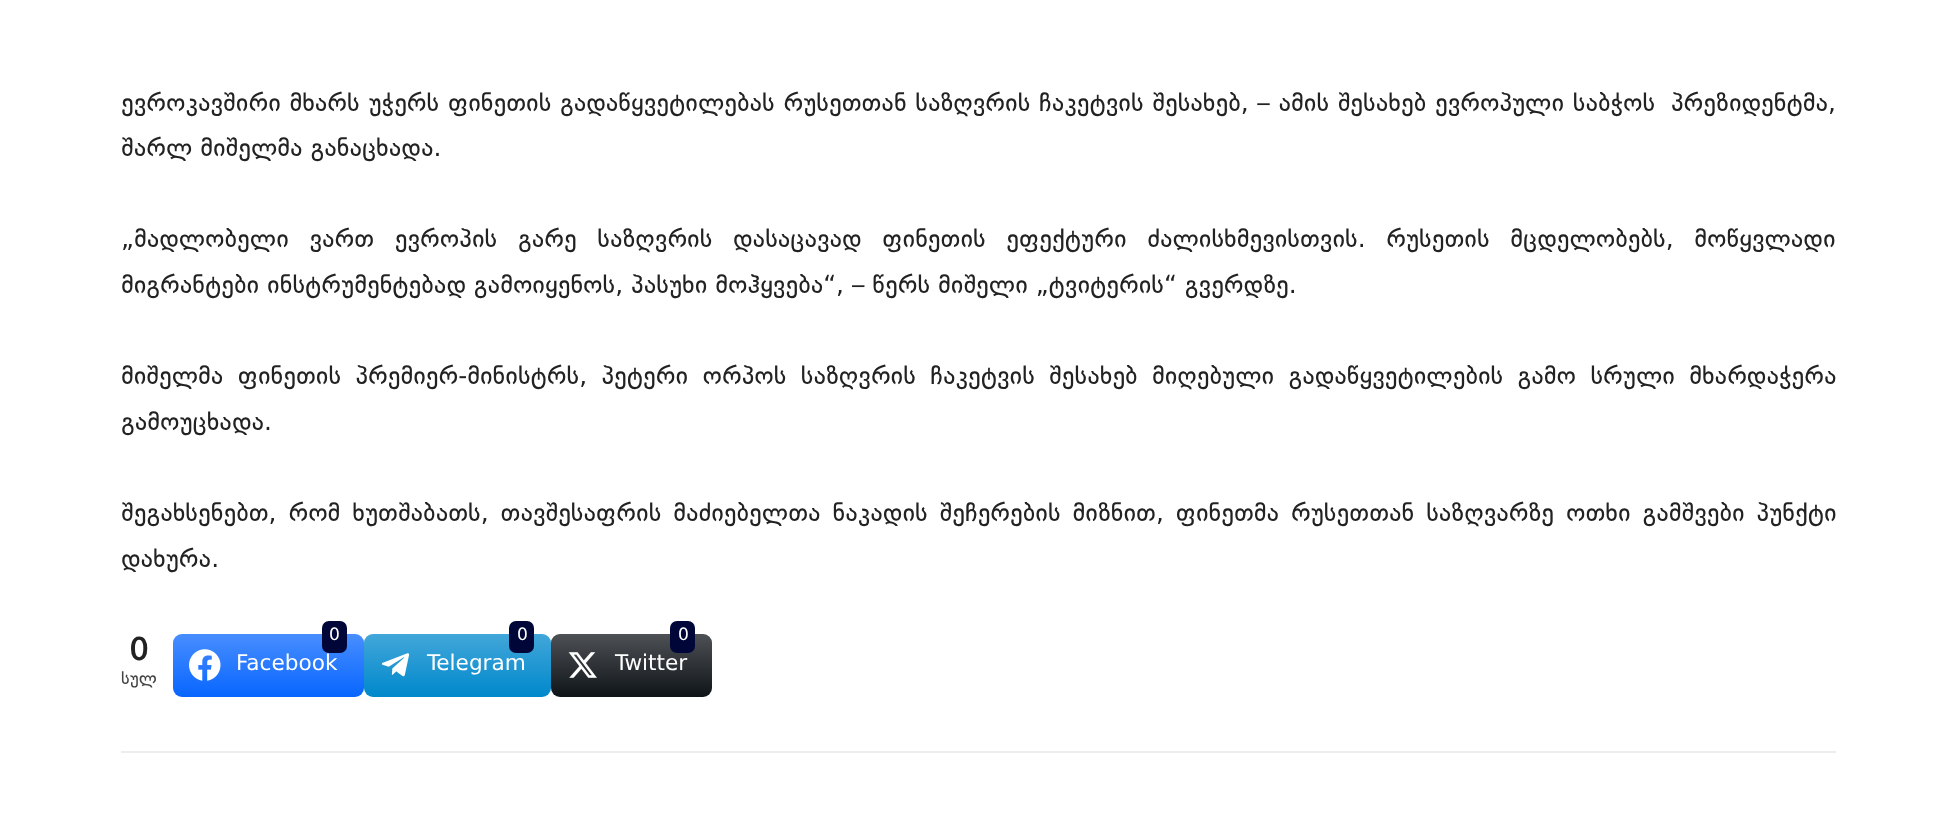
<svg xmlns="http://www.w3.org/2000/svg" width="1956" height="833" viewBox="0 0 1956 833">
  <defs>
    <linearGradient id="g1" gradientUnits="userSpaceOnUse" x1="269" y1="697" x2="269" y2="634"><stop offset="0" stop-color="#fff" stop-opacity="0"/><stop offset="1" stop-color="#fff" stop-opacity="0.26"/></linearGradient>
    <linearGradient id="g2" gradientUnits="userSpaceOnUse" x1="458" y1="697" x2="458" y2="634"><stop offset="0" stop-color="#fff" stop-opacity="0"/><stop offset="1" stop-color="#fff" stop-opacity="0.26"/></linearGradient>
    <linearGradient id="g3" gradientUnits="userSpaceOnUse" x1="632" y1="697" x2="632" y2="634"><stop offset="0" stop-color="#fff" stop-opacity="0"/><stop offset="1" stop-color="#fff" stop-opacity="0.26"/></linearGradient>
  </defs>
  <rect width="100%" height="100%" fill="#fff"/>
  <rect x="173" y="634" width="191" height="63" rx="9" fill="#0866ff"/>
  <rect x="173" y="634" width="191" height="63" rx="9" fill="url(#g1)"/>
  <rect x="322" y="621" width="25" height="32" rx="7" fill="#000638"/>
  <image x="189" y="649" width="32" height="32" href="img/1.png"/>
  <rect x="364" y="634" width="187" height="63" rx="9" fill="#08c"/>
  <rect x="364" y="634" width="187" height="63" rx="9" fill="url(#g2)"/>
  <rect x="509" y="621" width="25" height="32" rx="7" fill="#000638"/>
  <image x="382" y="653" width="27" height="24" href="img/2.png"/>
  <rect x="551" y="634" width="161" height="63" rx="9" fill="#0f1419"/>
  <rect x="551" y="634" width="161" height="63" rx="9" fill="url(#g3)"/>
  <rect x="670" y="621" width="25" height="32" rx="7" fill="#000638"/>
  <image x="568" y="652" width="29" height="26" href="img/3.png"/>
  <path d="M121 751h1715v2H121z" fill="#ededed"/>
  <g font-family="DejaVu Sans" font-size="26.25" fill="#222">
    <text x="121" y="111" word-spacing="0.75">ევროკავშირი მხარს უჭერს ფინეთის გადაწყვეტილებას რუსეთთან საზღვრის ჩაკეტვის შესახებ, – ამის შესახებ ევროპული საბჭოს</text>
    <text x="1671" y="111" word-spacing="0.75">პრეზიდენტმა,</text>
    <text x="121" y="156">შარლ მიშელმა განაცხადა.</text>
    <text x="121" y="247" word-spacing="12.75">„მადლობელი ვართ ევროპის გარე საზღვრის დასაცავად ფინეთის ეფექტური ძალისხმევისთვის. რუსეთის მცდელობებს, მოწყვლადი</text>
    <text x="121" y="293">მიგრანტები ინსტრუმენტებად გამოიყენოს, პასუხი მოჰყვება“, – წერს მიშელი „ტვიტერის“ გვერდზე.</text>
    <text x="121" y="384" word-spacing="6.4">მიშელმა ფინეთის პრემიერ-მინისტრს, პეტერი ორპოს საზღვრის ჩაკეტვის შესახებ მიღებული გადაწყვეტილების გამო სრული მხარდაჭერა</text>
    <text x="121" y="430">გამოუცხადა.</text>
    <text x="121" y="521" word-spacing="4">შეგახსენებთ, რომ ხუთშაბათს, თავშესაფრის მაძიებელთა ნაკადის შეჩერების მიზნით, ფინეთმა რუსეთთან საზღვარზე ოთხი გამშვები პუნქტი</text>
    <text x="121" y="567">დახურა.</text>
  </g>
  <text x="129" y="660" font-family="DejaVu Sans" font-size="32" font-weight="bold" fill="#222">0</text>
  <text x="121" y="684" font-family="DejaVu Sans" font-size="18" fill="#444">სულ</text>
  <text x="329" y="640" font-family="DejaVu Sans" font-size="18" fill="#fff">0</text>
  <text x="236" y="670" font-family="DejaVu Sans" font-size="22.75" fill="#fff">Facebook</text>
  <text x="517" y="640" font-family="DejaVu Sans" font-size="18" fill="#fff">0</text>
  <text x="427" y="670" font-family="DejaVu Sans" font-size="22.75" fill="#fff">Telegram</text>
  <text x="678" y="640" font-family="DejaVu Sans" font-size="18" fill="#fff">0</text>
  <text x="615" y="670" font-family="DejaVu Sans" font-size="22.75" fill="#fff">Twitter</text>
</svg>
